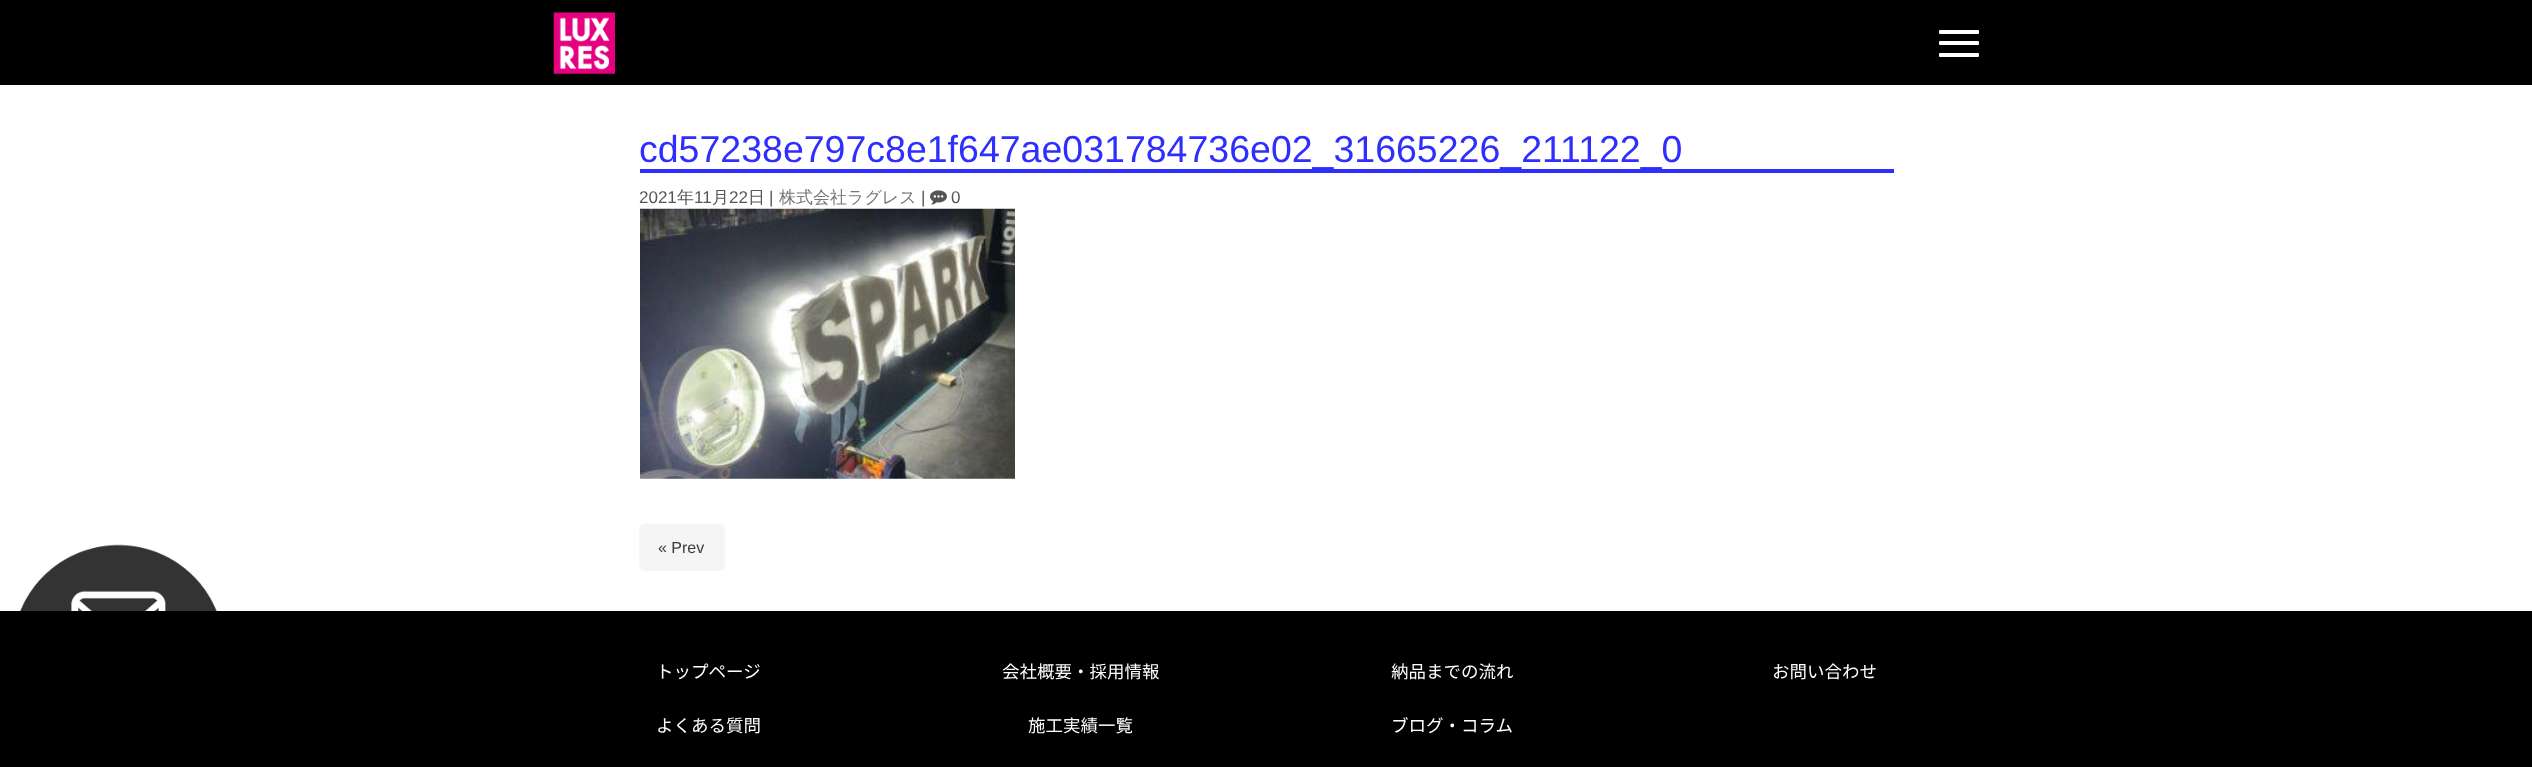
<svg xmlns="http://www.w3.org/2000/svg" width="2532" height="767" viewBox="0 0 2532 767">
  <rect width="100%" height="100%" fill="#fff"/>
  <path d="M0 0h2532v85H0z" fill="#000"/>
  <image x="553" y="12" width="62" height="62" href="img/1.png"/>
  <rect x="1939" y="30" width="40" height="4" rx="1" fill="#fff"/>
  <rect x="1939" y="41" width="40" height="4" rx="1" fill="#fff"/>
  <rect x="1939" y="53" width="40" height="4" rx="1" fill="#fff"/>
  <path d="M640 169h1254v4H640z" fill="#2e2efe"/>
  <image x="930" y="190" width="17" height="15" href="img/2.png"/>
  <image x="640" y="208" width="375" height="271" href="img/3.png"/>
  <rect x="640" y="525" width="84" height="45" rx="5" fill="#3232321a" filter="blur(1px)"/>
  <rect x="640" y="524" width="84" height="45" rx="5" fill="#f5f5f5"/>
  <image x="20" y="544" width="197" height="67" href="img/4.png"/>
  <path d="M0 611h2532v156H0z" fill="#000"/>
  <text x="639" y="162" font-family="Liberation Sans" font-size="37.5" fill="#2e2efe">cd57238e797c8e1f647ae031784736e02_31665226_211122_0</text>
  <text x="639" y="203" font-family="Liberation Sans" font-size="17" fill="#555">2021</text>
  <text x="677" y="203" font-family="WenQuanYi Zen Hei" font-size="17" font-weight="500" fill="#555">年</text>
  <text x="694" y="203" font-family="Liberation Sans" font-size="17" fill="#555">11</text>
  <text x="712" y="203" font-family="WenQuanYi Zen Hei" font-size="17" font-weight="500" fill="#555">月</text>
  <text x="729" y="203" font-family="Liberation Sans" font-size="17" fill="#555">22</text>
  <text x="748" y="203" font-family="WenQuanYi Zen Hei" font-size="17" font-weight="500" fill="#555">日</text>
  <text x="769" y="203" font-family="Liberation Sans" font-size="17" fill="#555">|</text>
  <text x="779" y="203" font-family="WenQuanYi Zen Hei" font-size="17" font-weight="500" fill="#777">株式会社ラグレス</text>
  <g font-family="Liberation Sans" font-size="17" fill="#555">
    <text x="921" y="203">|</text>
    <text x="951" y="203">0</text>
  </g>
  <text x="658" y="553" font-family="Liberation Sans" font-size="16" fill="#3c3c3c">« Prev</text>
  <g font-family="Noto Sans JP" font-size="17.5" fill="#fff">
    <text x="656" y="678">トップページ</text>
    <text x="656" y="732">よくある質問</text>
    <text x="1002" y="678">会社概要・採用情報</text>
    <text x="1028" y="732">施工実績一覧</text>
    <text x="1391" y="678">納品までの流れ</text>
    <text x="1391" y="732">ブログ・コラム</text>
    <text x="1772" y="678">お問い合わせ</text>
  </g>
</svg>
